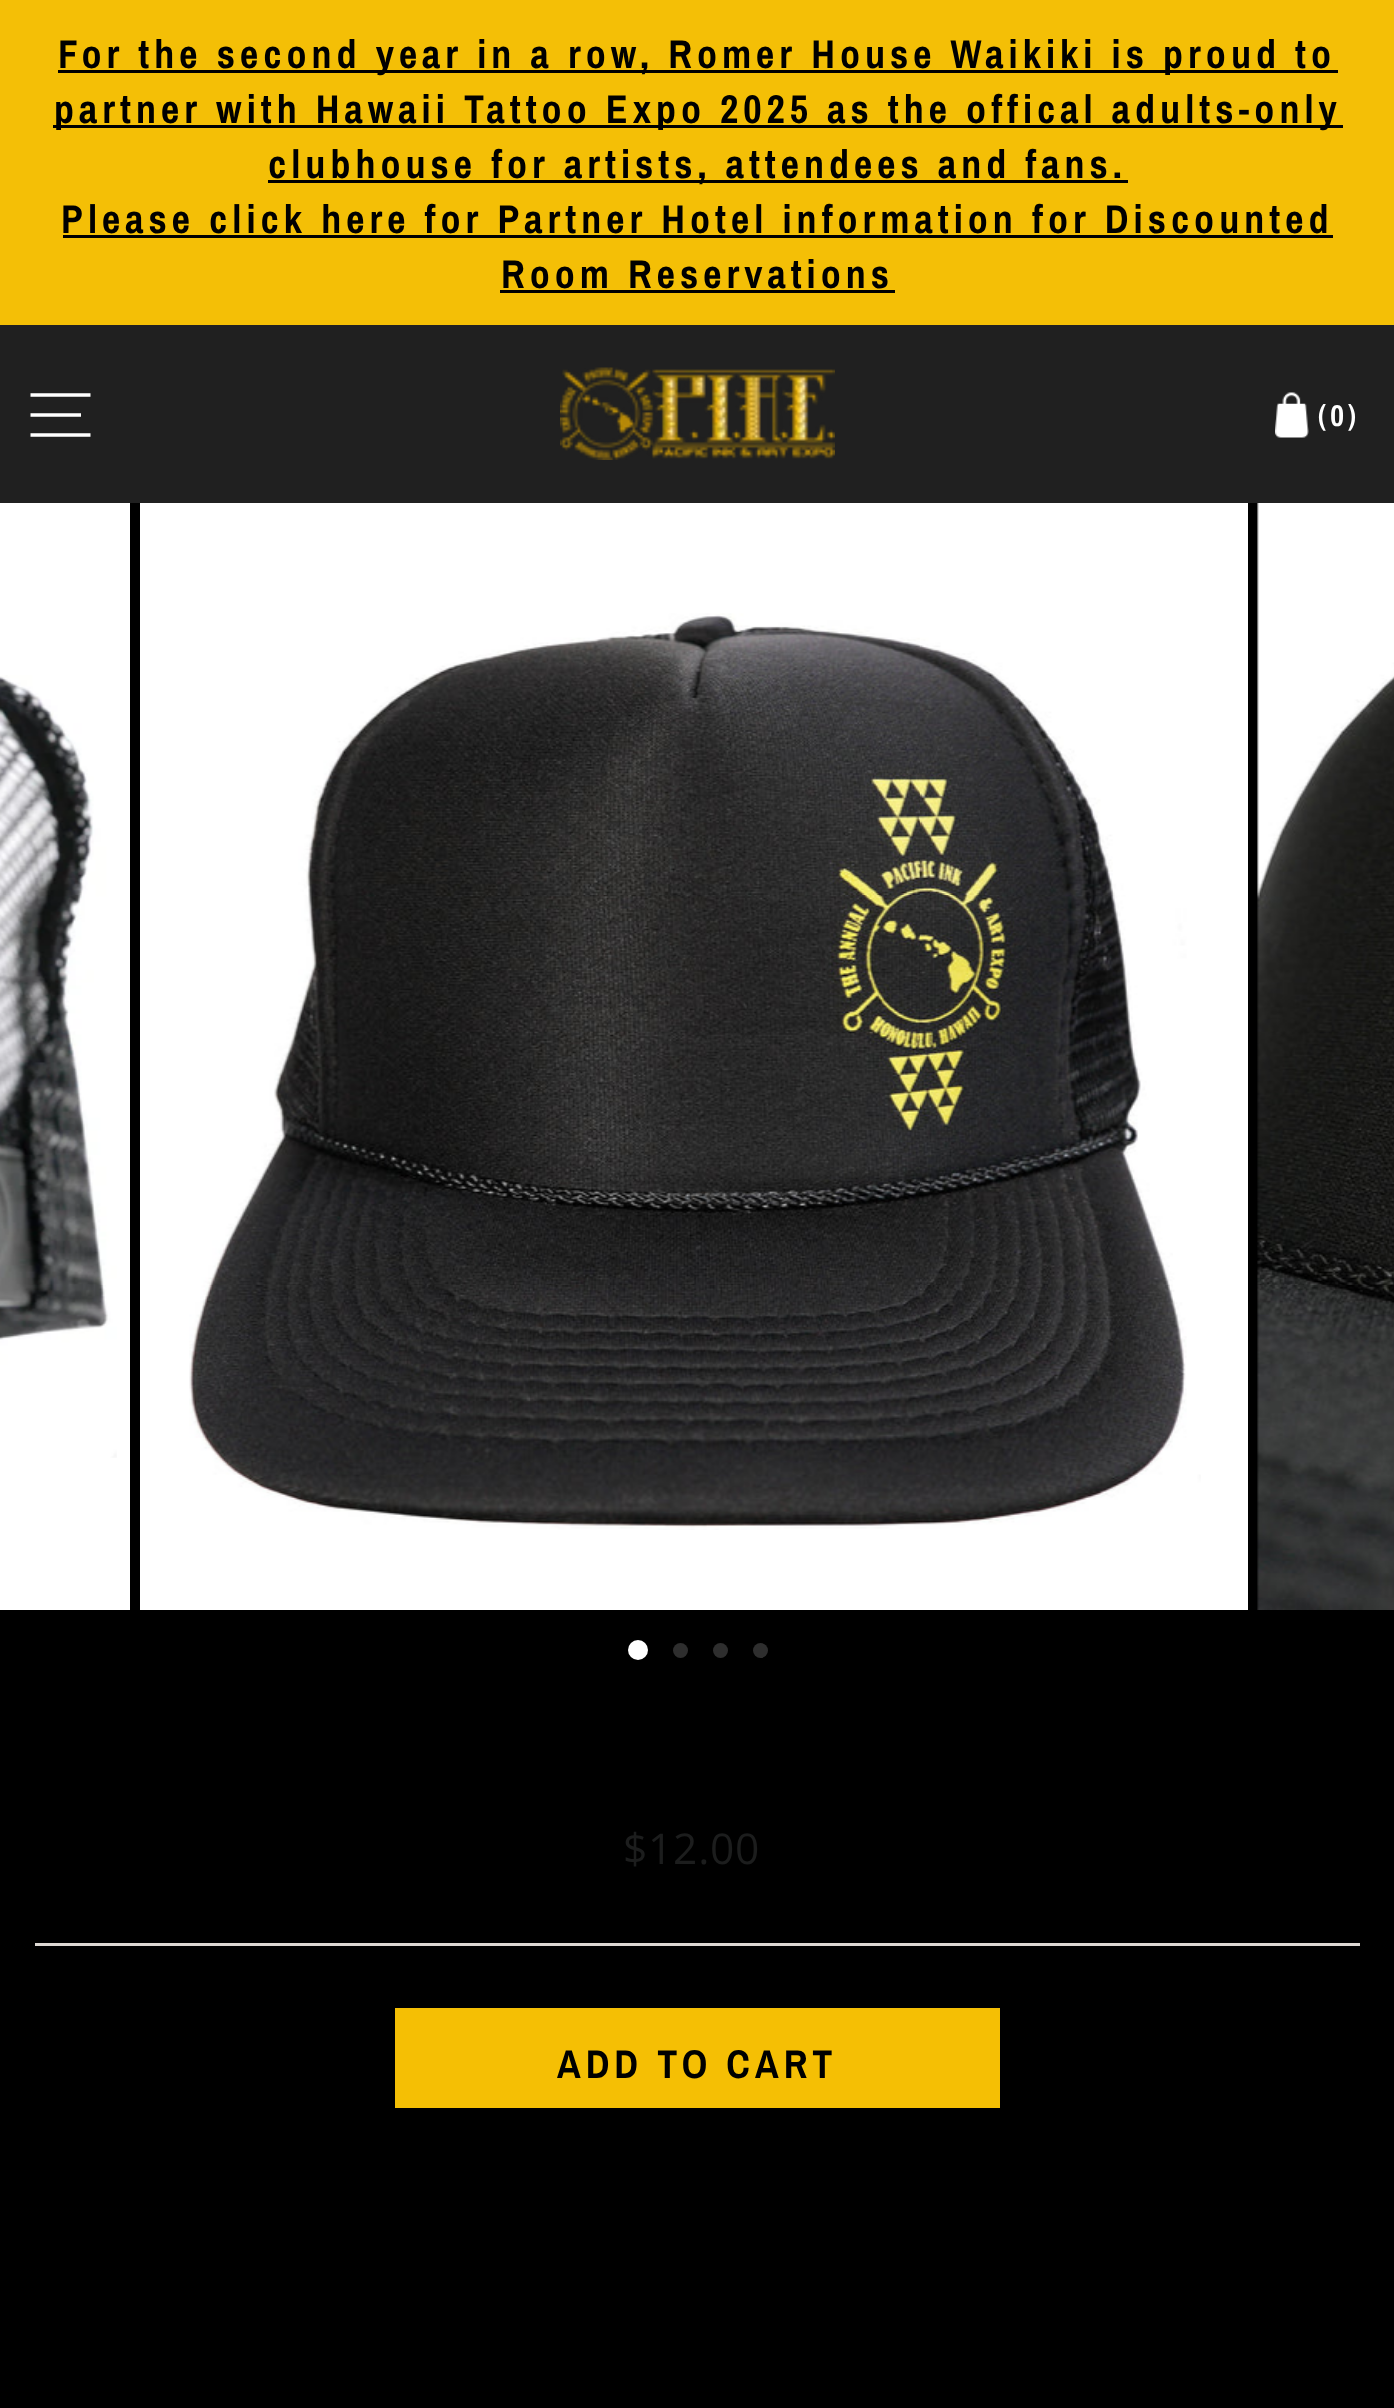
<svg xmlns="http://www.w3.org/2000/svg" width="1394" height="2408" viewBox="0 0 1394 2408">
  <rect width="100%" height="100%" fill="#000"/>
  <path d="M0 0h1394v325H0z" fill="#f4bf06"/>
  <path d="M58 70h1280v3H58z" fill="#000"/>
  <path d="M53 125h1290v3H53z" fill="#000"/>
  <path d="M268 180h860v3H268z" fill="#000"/>
  <path d="M63 235h1270v3H63z" fill="#000"/>
  <path d="M500 290h395v3H500z" fill="#000"/>
  <path d="M0 325h1394v178H0z" fill="#202020"/>
  <path d="M30.5 395H90.5M30.5 415H81M30.5 435H90.5" fill="none" stroke="#fff" stroke-width="3.5"/>
  <image x="560" y="367" width="275" height="93" href="img/1.png"/>
  <image x="1275" y="392" width="34" height="46" href="img/2.png"/>
  <path d="M0 503h130v1107H0z" fill="#fff"/>
  <image x="0" y="675" width="117" height="783" href="img/3.png"/>
  <path d="M140 503h1108v1107H140z" fill="#fff"/>
  <image x="189" y="613" width="1012" height="917" href="img/4.png"/>
  <image x="1257" y="503" width="137" height="1107" href="img/5.png"/>
  <circle cx="638" cy="1650" r="10" fill="#fff"/>
  <circle cx="680.5" cy="1650.5" r="7.5" fill="#2e2e2e"/>
  <circle cx="720.5" cy="1650.5" r="7.5" fill="#2e2e2e"/>
  <circle cx="760.5" cy="1650.5" r="7.5" fill="#2e2e2e"/>
  <path d="M35 1943h1325v3H35z" fill="#ddd8d3"/>
  <path d="M395 2008h605v100H395z" fill="#f5bf04"/>
  <g font-family="Archivo Narrow" font-size="40" font-weight="bold" letter-spacing="5" fill="#000">
    <text x="58" y="68">For the second year in a row, Romer House Waikiki is proud to</text>
    <text x="54" y="123">partner with Hawaii Tattoo Expo 2025 as the offical adults-only</text>
    <text x="268" y="178">clubhouse for artists, attendees and fans.</text>
    <text x="61" y="233">Please click here for Partner Hotel information for Discounted</text>
    <text x="501" y="288">Room Reservations</text>
  </g>
  <text x="1318" y="426" font-family="Archivo Narrow" font-size="30" font-weight="bold" letter-spacing="4" fill="#fff">(0)</text>
  <text x="623" y="1864" font-family="Open Sans" font-size="42.5" letter-spacing="0.75" fill="#1c1d1d">$12.00</text>
  <text x="557" y="2078" font-family="Archivo Narrow" font-size="40" font-weight="bold" letter-spacing="5" fill="#000">ADD TO CART</text>
</svg>
